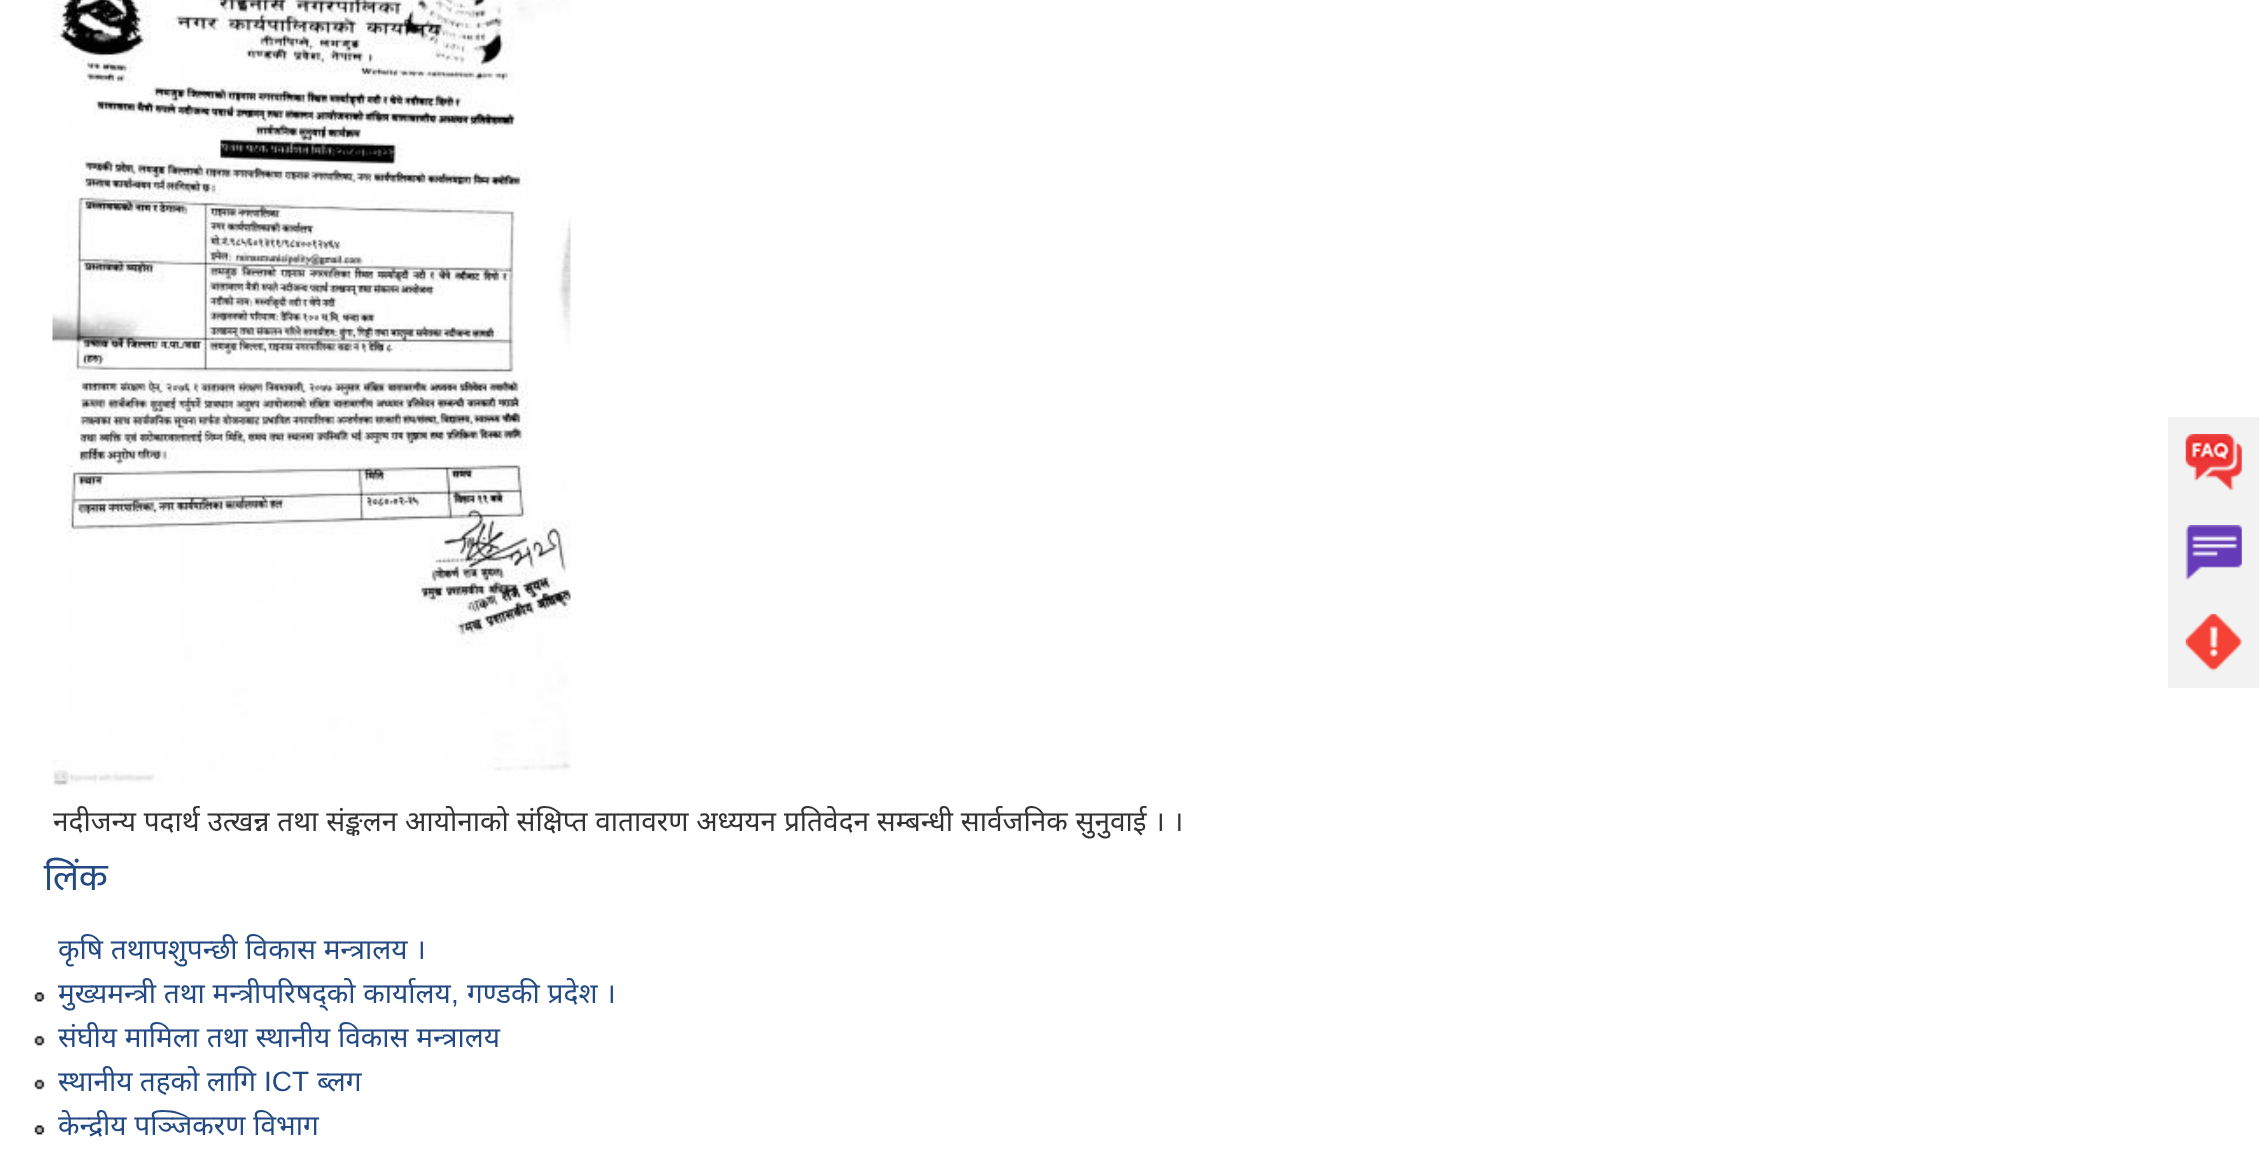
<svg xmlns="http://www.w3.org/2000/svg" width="2259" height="1167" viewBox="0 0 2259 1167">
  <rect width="100%" height="100%" fill="#fff"/>
  <path d="M2168 417h91v271H2168z" fill="#f2f2f2"/>
  <image x="2185" y="434" width="57" height="56" href="img/1.png"/>
  <image x="2185" y="525" width="57" height="55" href="img/2.png"/>
  <image x="2185" y="614" width="57" height="57" href="img/3.png"/>
  <image x="52" y="0" width="519" height="786" href="img/4.png"/>
  <image x="34" y="992" width="11" height="10" href="img/5.png"/>
  <image x="34" y="1035" width="11" height="11" href="img/6.png"/>
  <image x="34" y="1079" width="11" height="11" href="img/7.png"/>
  <image x="34" y="1125" width="11" height="10" href="img/5.png"/>
  <text x="53" y="831" word-spacing="0.5" font-family="Noto Sans" font-size="28" fill="#333">नदीजन्य पदार्थ उत्खन्न तथा संङ्कलन आयोनाको संक्षिप्त वातावरण अध्ययन प्रतिवेदन सम्बन्धी सार्वजनिक सुनुवाई । ।</text>
  <text x="44" y="890" font-family="Mukta" font-size="38" fill="#234a83">लिंक</text>
  <g font-family="Noto Sans" font-size="28" fill="#234a83">
    <text x="58" y="959" word-spacing="0.5">कृषि तथापशुपन्छी विकास मन्त्रालय ।</text>
    <text x="58" y="1003" word-spacing="0.5">मुख्यमन्त्री तथा मन्त्रीपरिषद्को कार्यालय</text>
  </g>
  <text x="451" y="1003" font-family="Liberation Sans" font-size="28" fill="#234a83">,</text>
  <g font-family="Noto Sans" font-size="28" fill="#234a83">
    <text x="467" y="1003" word-spacing="0.5">गण्डकी प्रदेश ।</text>
    <text x="58" y="1047" word-spacing="0.5">संघीय मामिला तथा स्थानीय विकास मन्त्रालय</text>
    <text x="58" y="1091">स्थानीय तहको लागि</text>
  </g>
  <text x="264" y="1091" font-family="Liberation Sans" font-size="28" fill="#234a83">ICT</text>
  <g font-family="Noto Sans" font-size="28" fill="#234a83">
    <text x="317" y="1091">ब्लग</text>
    <text x="58" y="1135" word-spacing="0.5">केन्द्रीय पञ्जिकरण विभाग</text>
  </g>
</svg>
